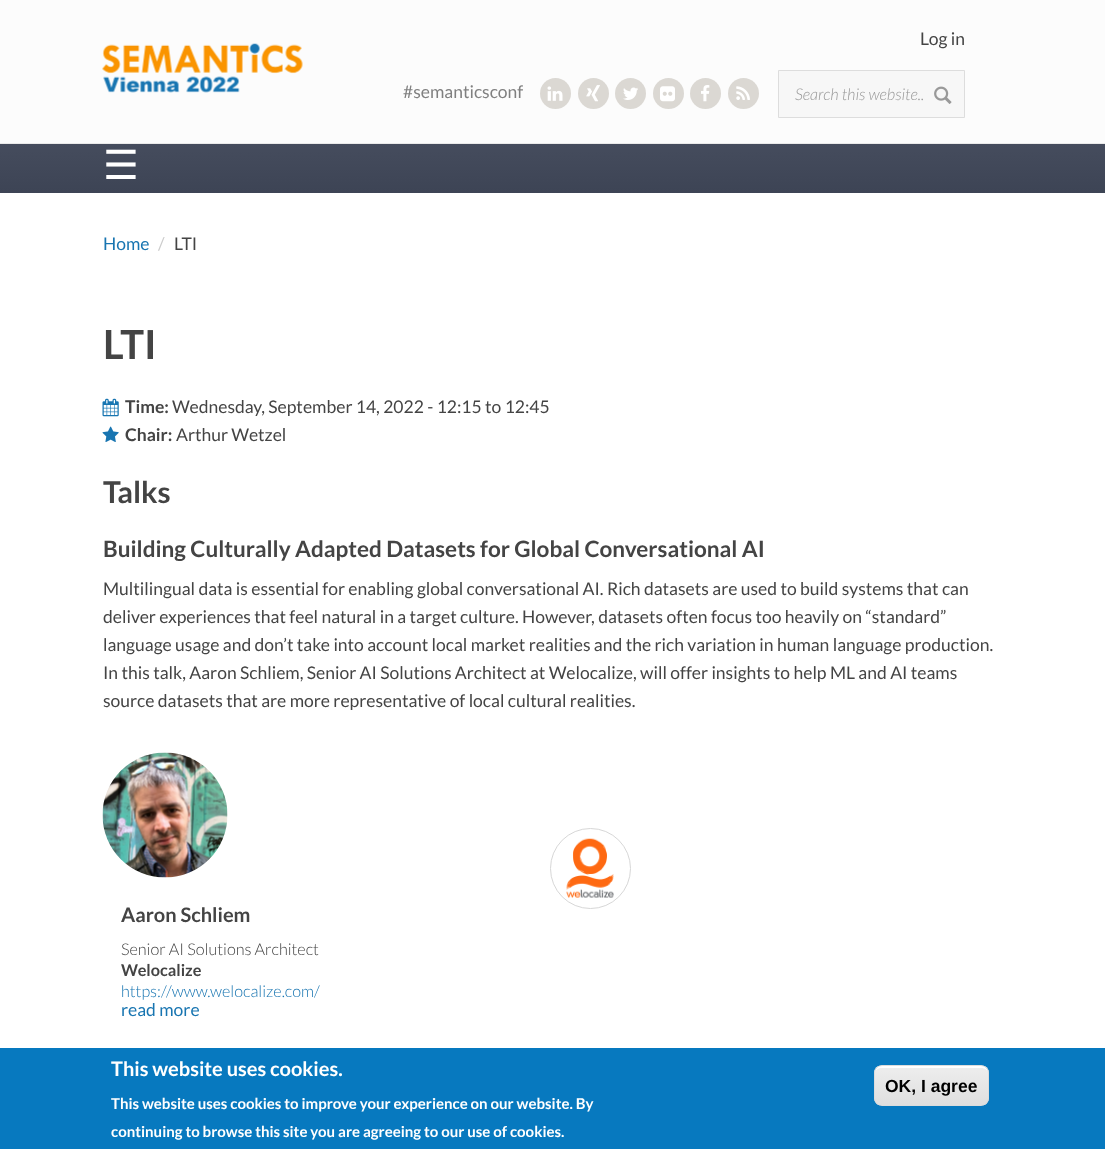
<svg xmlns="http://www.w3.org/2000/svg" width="1105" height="1149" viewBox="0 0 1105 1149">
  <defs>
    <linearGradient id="g1" gradientUnits="userSpaceOnUse" x1="553" y1="144" x2="553" y2="193"><stop offset="0" stop-color="#454c5d"/><stop offset="1" stop-color="#3d4455"/></linearGradient>
    <clipPath id="clip1"><rect x="874" y="1065" width="115" height="41" rx="8"/></clipPath>
    <linearGradient id="g2" gradientUnits="userSpaceOnUse" x1="931" y1="1066" x2="931" y2="1105"><stop offset="0.05" stop-color="#ededed"/><stop offset="1" stop-color="#dfdfdf"/></linearGradient>
  </defs>
  <rect width="100%" height="100%" fill="#fff"/>
  <path d="M0 0h1105v143H0z" fill="#fcfcfc"/>
  <path d="M0 143h1105v1H0z" fill="#eaeaea"/>
  <image x="102" y="43" width="201" height="50" href="img/1.png"/>
  <circle cx="555.5" cy="93.5" r="15.5" fill="#dbd8d3"/>
  <image x="547" y="86" width="16" height="15" href="img/2.png"/>
  <circle cx="593.5" cy="93.5" r="15.5" fill="#dbd8d3"/>
  <image x="586" y="85" width="14" height="17" href="img/3.png"/>
  <circle cx="630.5" cy="93.5" r="15.5" fill="#dbd8d3"/>
  <image x="623" y="87" width="15" height="13" href="img/4.png"/>
  <circle cx="668.5" cy="93.5" r="15.5" fill="#dbd8d3"/>
  <image x="660" y="86" width="15" height="16" href="img/5.png"/>
  <circle cx="705.5" cy="93.5" r="15.5" fill="#dbd8d3"/>
  <image x="701" y="85" width="9" height="17" href="img/6.png"/>
  <circle cx="743.5" cy="93.5" r="15.5" fill="#dbd8d3"/>
  <image x="736" y="86" width="14" height="14" href="img/7.png"/>
  <path d="M778.5 70.5h186v47H778.5z" fill="#f7f7f7" stroke="#ddd"/>
  <image x="934" y="86" width="18" height="18" href="img/8.png"/>
  <path d="M0 144h1105v49H0z" fill="url(#g1)"/>
  <image x="102" y="398" width="17" height="19" href="img/9.png"/>
  <image x="102" y="426" width="17" height="16" href="img/10.png"/>
  <image x="102" y="752" width="126" height="126" href="img/11.png"/>
  <circle cx="590.5" cy="868.5" r="40" fill="none" stroke="#d7d7d7"/>
  <image x="566" y="838" width="48" height="60" href="img/12.png"/>
  <path d="M0 1048h1105v101H0z" fill="#0779bf"/>
  <g clip-path="url(#clip1)">
    <path d="M874 1066h115v39H874z" fill="url(#g2)"/>
  </g>
  <path d="M881 1068H981C985 1068 988 1070 988 1074C988 1062 974 1066 965 1066H898C889 1066 875 1062 875 1074C875 1070 878 1068 881 1068Z" fill="#fff"/>
  <rect x="874.5" y="1065.5" width="114" height="40" rx="7.5" fill="none" stroke="#dcdcdc"/>
  <text x="920" y="45" font-family="Lato" font-size="17.5" fill="#444">Log in</text>
  <text x="403" y="98" font-family="Lato" font-size="17.5" fill="#808080">#semanticsconf</text>
  <text x="795" y="100" font-family="Lato" font-size="16.25" font-weight="300" font-style="italic" fill="#999">Search this website..</text>
  <text x="103" y="179" font-family="DejaVu Sans" font-size="40" fill="#fff">☰</text>
  <text x="103" y="250" font-family="Lato" font-size="17.5" fill="#1875b1">Home</text>
  <text x="158" y="250" font-family="Lato" font-size="17.5" fill="#ccc">/</text>
  <text x="174" y="250" font-family="Lato" font-size="17.5" fill="#444">LTI</text>
  <text x="103" y="359" font-family="Lato" font-size="40" font-weight="bold" fill="#444">LTI</text>
  <text x="125" y="413" font-family="Lato" font-size="17.5" font-weight="bold" fill="#444">Time:</text>
  <text x="172" y="413" font-family="Lato" font-size="17.5" fill="#444">Wednesday, September 14, 2022 - 12:15 to 12:45</text>
  <text x="125" y="441" font-family="Lato" font-size="17.5" font-weight="bold" fill="#444">Chair:</text>
  <text x="176" y="441" font-family="Lato" font-size="17.5" fill="#444">Arthur Wetzel</text>
  <text x="103" y="503" font-family="Lato" font-size="30" font-weight="bold" fill="#444">Talks</text>
  <text x="103" y="557" font-family="Lato" font-size="22.5" font-weight="bold" fill="#444">Building Culturally Adapted Datasets for Global Conversational AI</text>
  <g font-family="Lato" font-size="17.5" fill="#444">
    <text x="103" y="595">Multilingual data is essential for enabling global conversational AI. Rich datasets are used to build systems that can</text>
    <text x="103" y="623">deliver experiences that feel natural in a target culture. However, datasets often focus too heavily on “standard”</text>
    <text x="103" y="651">language usage and don’t take into account local market realities and the rich variation in human language production.</text>
    <text x="103" y="679">In this talk, Aaron Schliem, Senior AI Solutions Architect at Welocalize, will offer insights to help ML and AI teams</text>
    <text x="103" y="707">source datasets that are more representative of local cultural realities.</text>
  </g>
  <text x="121" y="922" font-family="Lato" font-size="20" font-weight="bold" fill="#444">Aaron Schliem</text>
  <text x="121" y="955" font-family="Lato" font-size="16.25" font-weight="300" fill="#444">Senior AI Solutions Architect</text>
  <text x="121" y="976" font-family="Lato" font-size="16.25" font-weight="bold" fill="#444">Welocalize</text>
  <text x="121" y="997" font-family="Lato" font-size="16.25" font-weight="300" fill="#1875b1">https://www.welocalize.com/</text>
  <text x="121" y="1016" font-family="Lato" font-size="17.5" fill="#1875b1">read more</text>
  <text x="111" y="1076" font-family="Lato" font-size="20" font-weight="bold" fill="#fff">This website uses cookies.</text>
  <g font-family="Lato" font-size="15" font-weight="bold" fill="#fff">
    <text x="111" y="1109">This website uses cookies to improve your experience on our website. By</text>
    <text x="111" y="1137">continuing to browse this site you are agreeing to our use of cookies.</text>
  </g>
  <text x="885" y="1092" font-family="Liberation Sans" font-size="17.5" font-weight="bold" fill="#000">OK, I agree</text>
</svg>
